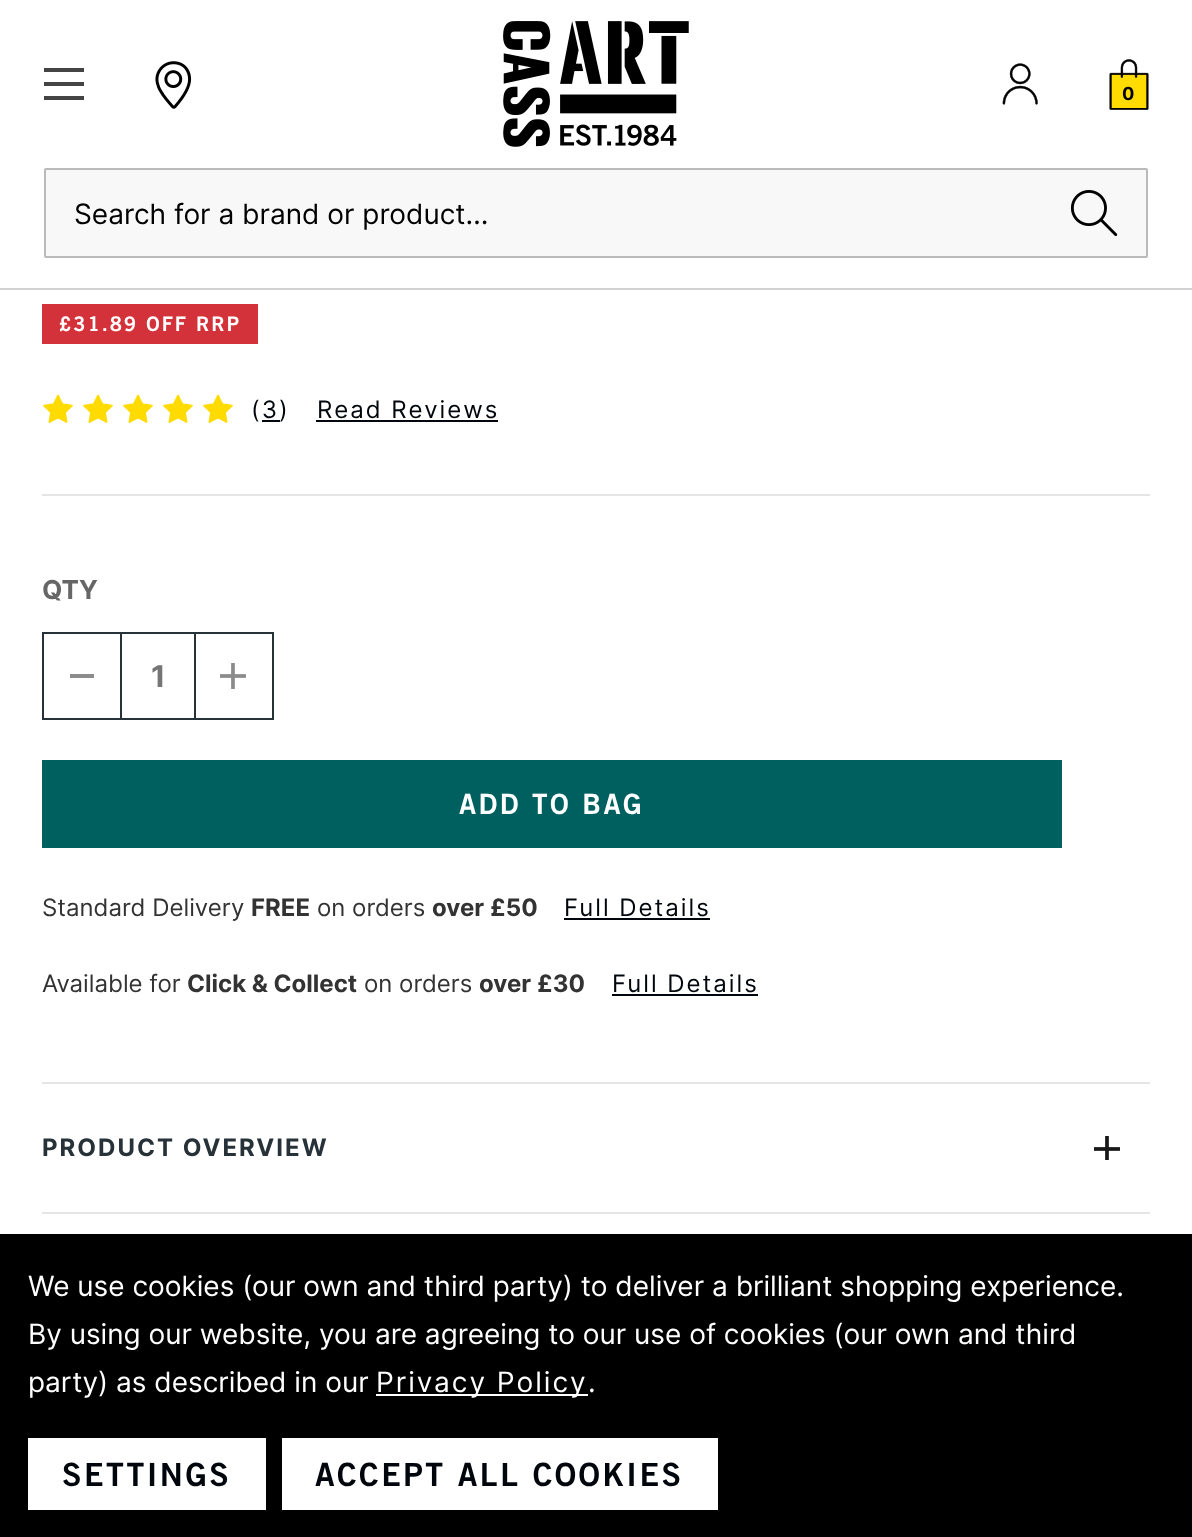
<svg xmlns="http://www.w3.org/2000/svg" width="1192" height="1537" viewBox="0 0 1192 1537">
  <rect width="100%" height="100%" fill="#fff"/>
  <path d="M44 82h40v4H44z" fill="#444"/>
  <path d="M44 68h40v4H44z" fill="#444"/>
  <path d="M44 96h40v4H44z" fill="#444"/>
  <image x="155" y="61" width="37" height="48" href="img/1.png"/>
  <image x="503" y="21" width="186" height="126" href="img/2.png"/>
  <image x="1002" y="63" width="36" height="42" href="img/3.png"/>
  <image x="1109" y="59" width="40" height="51" href="img/4.png"/>
  <rect x="45" y="169" width="1102" height="88" rx="1" fill="#f8f8f8" stroke="#bababa" stroke-width="2"/>
  <image x="1070" y="190" width="48" height="46" href="img/5.png"/>
  <path d="M0 288h1192v2H0z" fill="#d1d2d4"/>
  <path d="M42 494h1108v2H42z" fill="#e5e5e5"/>
  <path d="M42 304h216v40H42z" fill="#d4323a"/>
  <image x="43" y="394" width="30" height="29" href="img/6.png"/>
  <image x="83" y="394" width="30" height="29" href="img/6.png"/>
  <image x="123" y="394" width="30" height="29" href="img/6.png"/>
  <image x="163" y="394" width="30" height="29" href="img/6.png"/>
  <image x="203" y="394" width="30" height="29" href="img/6.png"/>
  <path d="M262 420h18v2H262z" fill="#00060b"/>
  <path d="M316 420h182v2H316z" fill="#00060b"/>
  <path d="M43 633h78v86H43z" fill="none" stroke="#263238" stroke-width="2"/>
  <path d="M70 674h24v4H70z" fill="#8c8c8c"/>
  <path d="M122 632h72v2H122z" fill="#263238"/>
  <path d="M122 718h72v2H122z" fill="#263238"/>
  <path d="M195 633h78v86H195z" fill="none" stroke="#263238" stroke-width="2"/>
  <image x="220" y="663" width="26" height="26" href="img/7.png"/>
  <path d="M42 760h1020v88H42z" fill="#006060"/>
  <path d="M564 918h146v2H564z" fill="#00060b"/>
  <path d="M612 994h146v2H612z" fill="#00060b"/>
  <path d="M42 1082h1108v2H42z" fill="#e5e5e5"/>
  <path d="M42 1212h1108v2H42z" fill="#e5e5e5"/>
  <image x="1094" y="1136" width="26" height="24" href="img/8.png"/>
  <path d="M0 1234h1192v303H0z" fill="#000"/>
  <path d="M376 1394h212v2H376z" fill="#fff"/>
  <path d="M28 1438h238v72H28z" fill="#fff"/>
  <path d="M282 1438h436v72H282z" fill="#fff"/>
  <text x="1122" y="100" font-family="Inter" font-size="18" font-weight="bold" fill="#000">0</text>
  <text x="74" y="224" font-family="Inter" font-size="28" fill="#000">Search for a brand or product…</text>
  <text x="59" y="331" font-family="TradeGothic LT" font-size="20" font-weight="bold" letter-spacing="2" fill="#fff">£31.89 OFF RRP</text>
  <g font-family="Inter" font-size="24" letter-spacing="2" fill="#00060b">
    <text x="251" y="418">(3)</text>
    <text x="317" y="418">Read Reviews</text>
  </g>
  <text x="42" y="599" font-family="Inter" font-size="26" font-weight="bold" fill="#666">QTY</text>
  <text x="151" y="687" font-family="Inter" font-size="30" font-weight="bold" fill="#757575">1</text>
  <text x="459" y="814" font-family="TradeGothic LT" font-size="28" font-weight="bold" letter-spacing="2.5" fill="#fff">ADD TO BAG</text>
  <text x="42" y="916" font-family="Inter" font-size="24" fill="#333">Standard Delivery</text>
  <text x="251" y="916" font-family="Inter" font-size="24" font-weight="bold" fill="#333">FREE</text>
  <text x="317" y="916" font-family="Inter" font-size="24" fill="#333">on orders</text>
  <text x="432" y="916" font-family="Inter" font-size="24" font-weight="bold" fill="#333">over £50</text>
  <text x="564" y="916" font-family="Inter" font-size="24" letter-spacing="2" fill="#00060b">Full Details</text>
  <text x="42" y="992" font-family="Inter" font-size="24" fill="#333">Available for</text>
  <text x="187" y="992" font-family="Inter" font-size="24" font-weight="bold" fill="#333">Click &amp; Collect</text>
  <text x="364" y="992" font-family="Inter" font-size="24" fill="#333">on orders</text>
  <text x="479" y="992" font-family="Inter" font-size="24" font-weight="bold" fill="#333">over £30</text>
  <text x="612" y="992" font-family="Inter" font-size="24" letter-spacing="2" fill="#00060b">Full Details</text>
  <text x="42" y="1156" font-family="Inter" font-size="24" font-weight="bold" letter-spacing="2" fill="#263238">PRODUCT OVERVIEW</text>
  <g font-family="Inter" font-size="28" fill="#fff">
    <text x="28" y="1296">We use cookies (our own and third party) to deliver a brilliant shopping experience.</text>
    <text x="28" y="1344">By using our website, you are agreeing to our use of cookies (our own and third</text>
    <text x="28" y="1392">party) as described in our</text>
  </g>
  <text x="376" y="1392" font-family="Inter" font-size="28" letter-spacing="2" fill="#fff">Privacy Policy</text>
  <text x="588" y="1392" font-family="Inter" font-size="28" fill="#fff">.</text>
  <g font-family="TradeGothic LT" font-size="32" font-weight="bold" letter-spacing="2.5" fill="#00060b">
    <text x="62" y="1486">SETTINGS</text>
    <text x="315" y="1486">ACCEPT ALL COOKIES</text>
  </g>
</svg>
